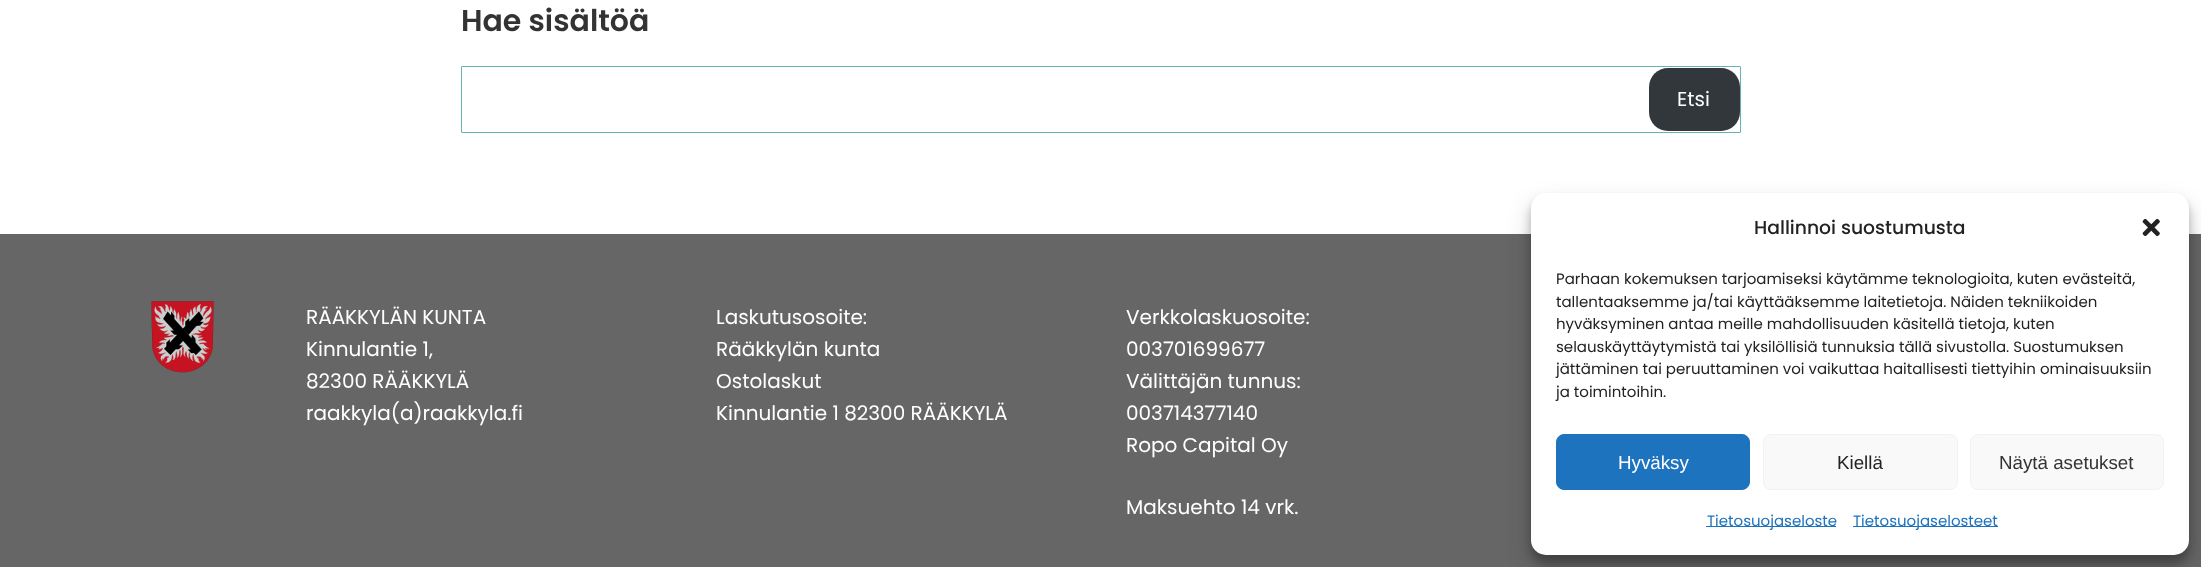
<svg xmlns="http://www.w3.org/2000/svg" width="2201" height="567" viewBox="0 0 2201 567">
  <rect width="100%" height="100%" fill="#fff"/>
  <rect x="461.5" y="66.5" width="1279" height="66" rx="0.5" fill="none" stroke="#66b2b4"/>
  <rect x="1649" y="68" width="91" height="63" rx="19" fill="#32373c"/>
  <path d="M0 234h2201v333H0z" fill="#666"/>
  <image x="151" y="301" width="63" height="72" href="img/1.png"/>
  <rect x="1531" y="200" width="658" height="363" rx="15" fill="#0000003b" filter="blur(4px)"/>
  <rect x="1531" y="205" width="658" height="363" rx="15" fill="#00000030" filter="blur(12.5px)"/>
  <rect x="1531" y="193" width="658" height="362" rx="15" fill="#fff"/>
  <image x="2142" y="218" width="18" height="19" href="img/2.png"/>
  <rect x="1556.5" y="434.5" width="193" height="55" rx="7.5" fill="#1e73be" stroke="#1e73be"/>
  <rect x="1763.5" y="434.5" width="194" height="55" rx="7.5" fill="#f9f9f9" stroke="#f2f2f2"/>
  <rect x="1970.5" y="434.5" width="193" height="55" rx="7.5" fill="#f9f9f9" stroke="#f2f2f2"/>
  <path d="M1706 526h130v1H1706z" fill="#1e73be"/>
  <path d="M1853 526h145v1H1853z" fill="#1e73be"/>
  <text x="461" y="31" font-family="Poppins" font-size="30" font-weight="600" fill="#333">Hae sisältöä</text>
  <g font-family="Poppins" font-size="20" fill="#fff">
    <text x="1677" y="106">Etsi</text>
    <text x="306" y="324">RÄÄKKYLÄN KUNTA</text>
    <text x="306" y="356">Kinnulantie 1,</text>
    <text x="306" y="388">82300 RÄÄKKYLÄ</text>
    <text x="306" y="420">raakkyla(a)raakkyla.fi</text>
    <text x="716" y="324">Laskutusosoite:</text>
    <text x="716" y="356">Rääkkylän kunta</text>
    <text x="716" y="388">Ostolaskut</text>
    <text x="716" y="420">Kinnulantie 1 82300 RÄÄKKYLÄ</text>
    <text x="1126" y="324">Verkkolaskuosoite:</text>
    <text x="1126" y="356">003701699677</text>
    <text x="1126" y="388">Välittäjän tunnus:</text>
    <text x="1126" y="420">003714377140</text>
    <text x="1126" y="452">Ropo Capital Oy</text>
    <text x="1126" y="514">Maksuehto 14 vrk.</text>
  </g>
  <text x="1754" y="234" font-family="Poppins" font-size="18.75" font-weight="500" fill="#222">Hallinnoi suostumusta</text>
  <g font-family="Poppins" font-size="15" fill="#222">
    <text x="1556" y="284">Parhaan kokemuksen tarjoamiseksi käytämme teknologioita, kuten evästeitä,</text>
    <text x="1556" y="307">tallentaaksemme ja/tai käyttääksemme laitetietoja. Näiden tekniikoiden</text>
    <text x="1556" y="329">hyväksyminen antaa meille mahdollisuuden käsitellä tietoja, kuten</text>
    <text x="1556" y="352">selauskäyttäytymistä tai yksilöllisiä tunnuksia tällä sivustolla. Suostumuksen</text>
    <text x="1556" y="374">jättäminen tai peruuttaminen voi vaikuttaa haitallisesti tiettyihin ominaisuuksiin</text>
    <text x="1556" y="397">ja toimintoihin.</text>
  </g>
  <text x="1618" y="469" font-family="Liberation Sans" font-size="18.75" fill="#fff">Hyväksy</text>
  <text x="1837" y="469" font-family="Liberation Sans" font-size="18.75" fill="#222">Kiellä</text>
  <text x="1999" y="469" font-family="Liberation Sans" font-size="18.75" fill="#333">Näytä asetukset</text>
  <g font-family="Poppins" font-size="15" fill="#1e73be">
    <text x="1707" y="526">Tietosuojaseloste</text>
    <text x="1853" y="526">Tietosuojaselosteet</text>
  </g>
</svg>
